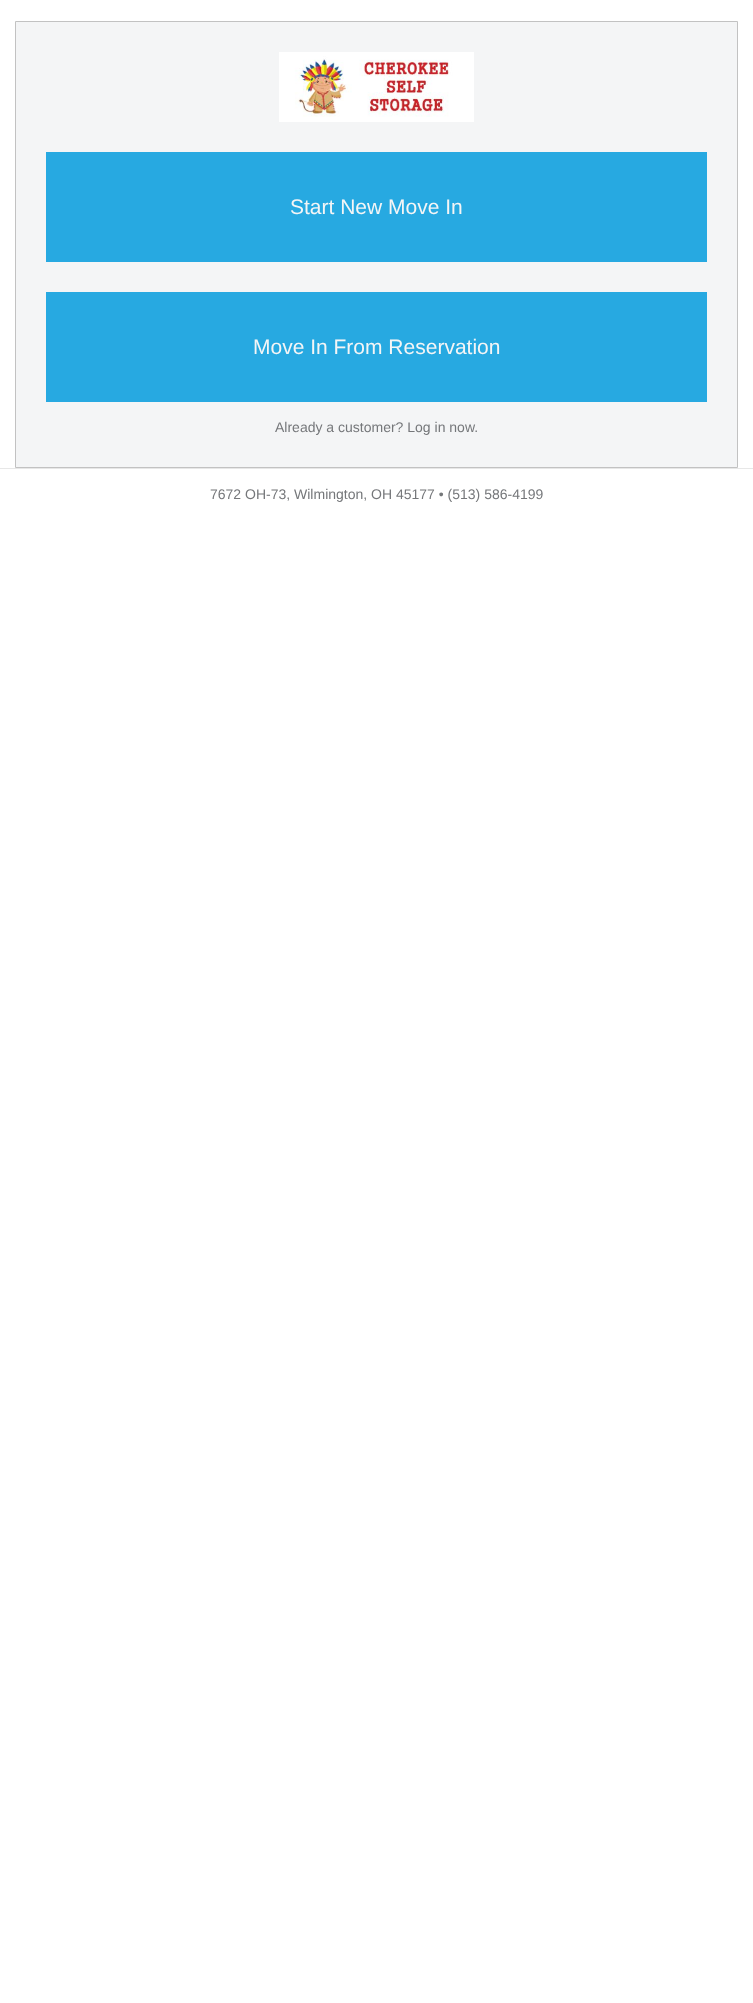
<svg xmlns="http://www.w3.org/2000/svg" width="753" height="2003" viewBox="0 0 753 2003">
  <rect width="100%" height="100%" fill="#fff"/>
  <path d="M15.5 21.5h722v446H15.5z" fill="#f4f5f6" stroke="#c2c2c2"/>
  <image x="279" y="52" width="195" height="70" href="img/1.png"/>
  <path d="M46 152h661v110H46z" fill="#27a9e1"/>
  <path d="M46 292h661v110H46z" fill="#27a9e1"/>
  <path d="M0 468h753v1H0z" fill="#e7e7e7"/>
  <g font-family="Liberation Sans" font-size="21" fill="#f4f5f6">
    <text x="290" y="214">Start New Move In</text>
    <text x="253" y="354">Move In From Reservation</text>
  </g>
  <g font-family="Liberation Sans" font-size="14" fill="#75777a">
    <text x="275" y="432">Already a customer? Log in now.</text>
    <text x="210" y="499">7672 OH-73, Wilmington, OH 45177 • (513) 586-4199</text>
  </g>
</svg>
